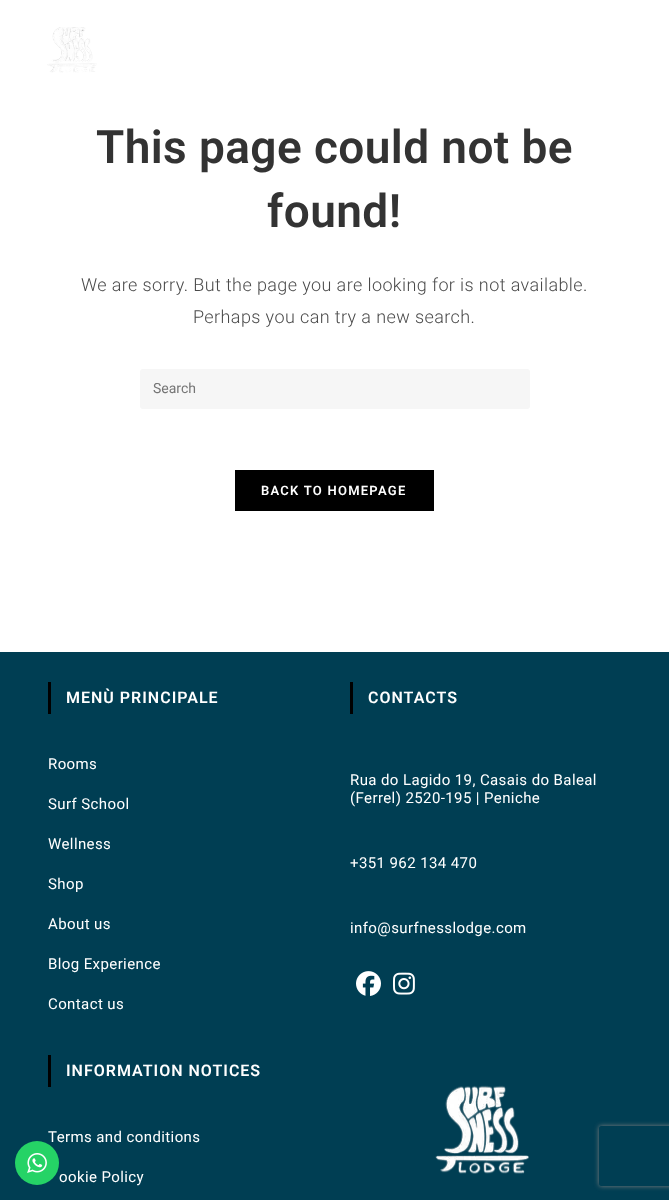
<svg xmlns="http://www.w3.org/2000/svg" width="669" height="1200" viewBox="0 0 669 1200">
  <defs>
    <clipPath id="clip1"><path d="M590 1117H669V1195H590ZM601 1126H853C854 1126 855 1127 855 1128V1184C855 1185 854 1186 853 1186H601C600 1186 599 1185 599 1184V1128C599 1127 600 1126 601 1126Z" clip-rule="evenodd"/></clipPath>
  </defs>
  <rect width="100%" height="100%" fill="#fff"/>
  <image x="47" y="27" width="50" height="46" href="img/2.png"/>
  <rect x="140" y="369" width="390" height="40" rx="3" fill="#f6f6f6"/>
  <path d="M235 470h199v41H235z" fill="#000"/>
  <path d="M0 652h669v548H0z" fill="#003e53"/>
  <path d="M48 682h3v32H48z" fill="#000"/>
  <path d="M350 682h3v32H350z" fill="#000"/>
  <image x="356" y="971" width="25" height="25" href="img/3.png"/>
  <image x="393" y="972" width="22" height="23" href="img/4.png"/>
  <path d="M48 1055h3v32H48z" fill="#000"/>
  <image x="435" y="1085" width="94" height="89" href="img/5.png"/>
  <g clip-path="url(#clip1)">
    <rect x="599" y="1126" width="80" height="60" rx="2" fill="#808080" filter="blur(2.5px)"/>
  </g>
  <g font-family="Roboto" font-size="46" font-weight="600" letter-spacing="0.4" fill="#333">
    <text x="96" y="163">This page could not be</text>
    <text x="267" y="227">found!</text>
  </g>
  <g font-family="Roboto" font-size="18" font-weight="300" letter-spacing="0.4" fill="#4a4a4a">
    <text x="81" y="291">We are sorry. But the page you are looking for is not available.</text>
    <text x="193" y="323">Perhaps you can try a new search.</text>
  </g>
  <text x="153" y="393" font-family="Roboto" font-size="14" fill="#757575">Search</text>
  <text x="261" y="495" font-family="Roboto" font-size="13" font-weight="600" letter-spacing="1.25" fill="#fff">BACK TO HOMEPAGE</text>
  <text x="66" y="703" font-family="Roboto" font-size="16" font-weight="600" letter-spacing="1" fill="#fff">MENÙ PRINCIPALE</text>
  <g font-family="Roboto" font-size="15" letter-spacing="0.4" fill="#fff">
    <text x="48" y="769">Rooms</text>
    <text x="48" y="809">Surf School</text>
    <text x="48" y="849">Wellness</text>
    <text x="48" y="889">Shop</text>
    <text x="48" y="929">About us</text>
    <text x="48" y="969">Blog Experience</text>
    <text x="48" y="1009">Contact us</text>
  </g>
  <text x="368" y="703" font-family="Roboto" font-size="16" font-weight="600" letter-spacing="1" fill="#fff">CONTACTS</text>
  <g font-family="Roboto" font-size="15" letter-spacing="0.4" fill="#fff">
    <text x="350" y="785">Rua do Lagido 19, Casais do Baleal</text>
    <text x="350" y="803">(Ferrel) 2520-195 | Peniche</text>
    <text x="350" y="868">+351 962 134 470</text>
    <text x="350" y="933">info@surfnesslodge.com</text>
  </g>
  <text x="66" y="1076" font-family="Roboto" font-size="16" font-weight="600" letter-spacing="1" fill="#fff">INFORMATION NOTICES</text>
  <text x="48" y="1142" font-family="Roboto" font-size="15" letter-spacing="0.4" fill="#fff">Terms and conditions</text>
  <circle cx="37" cy="1163" r="22" fill="#25d366"/>
  <image x="27" y="1153" width="20" height="20" href="img/1.png"/>
  <text x="59" y="1182" font-family="Roboto" font-size="15" letter-spacing="0.4" fill="#fff">ookie Policy</text>
</svg>
